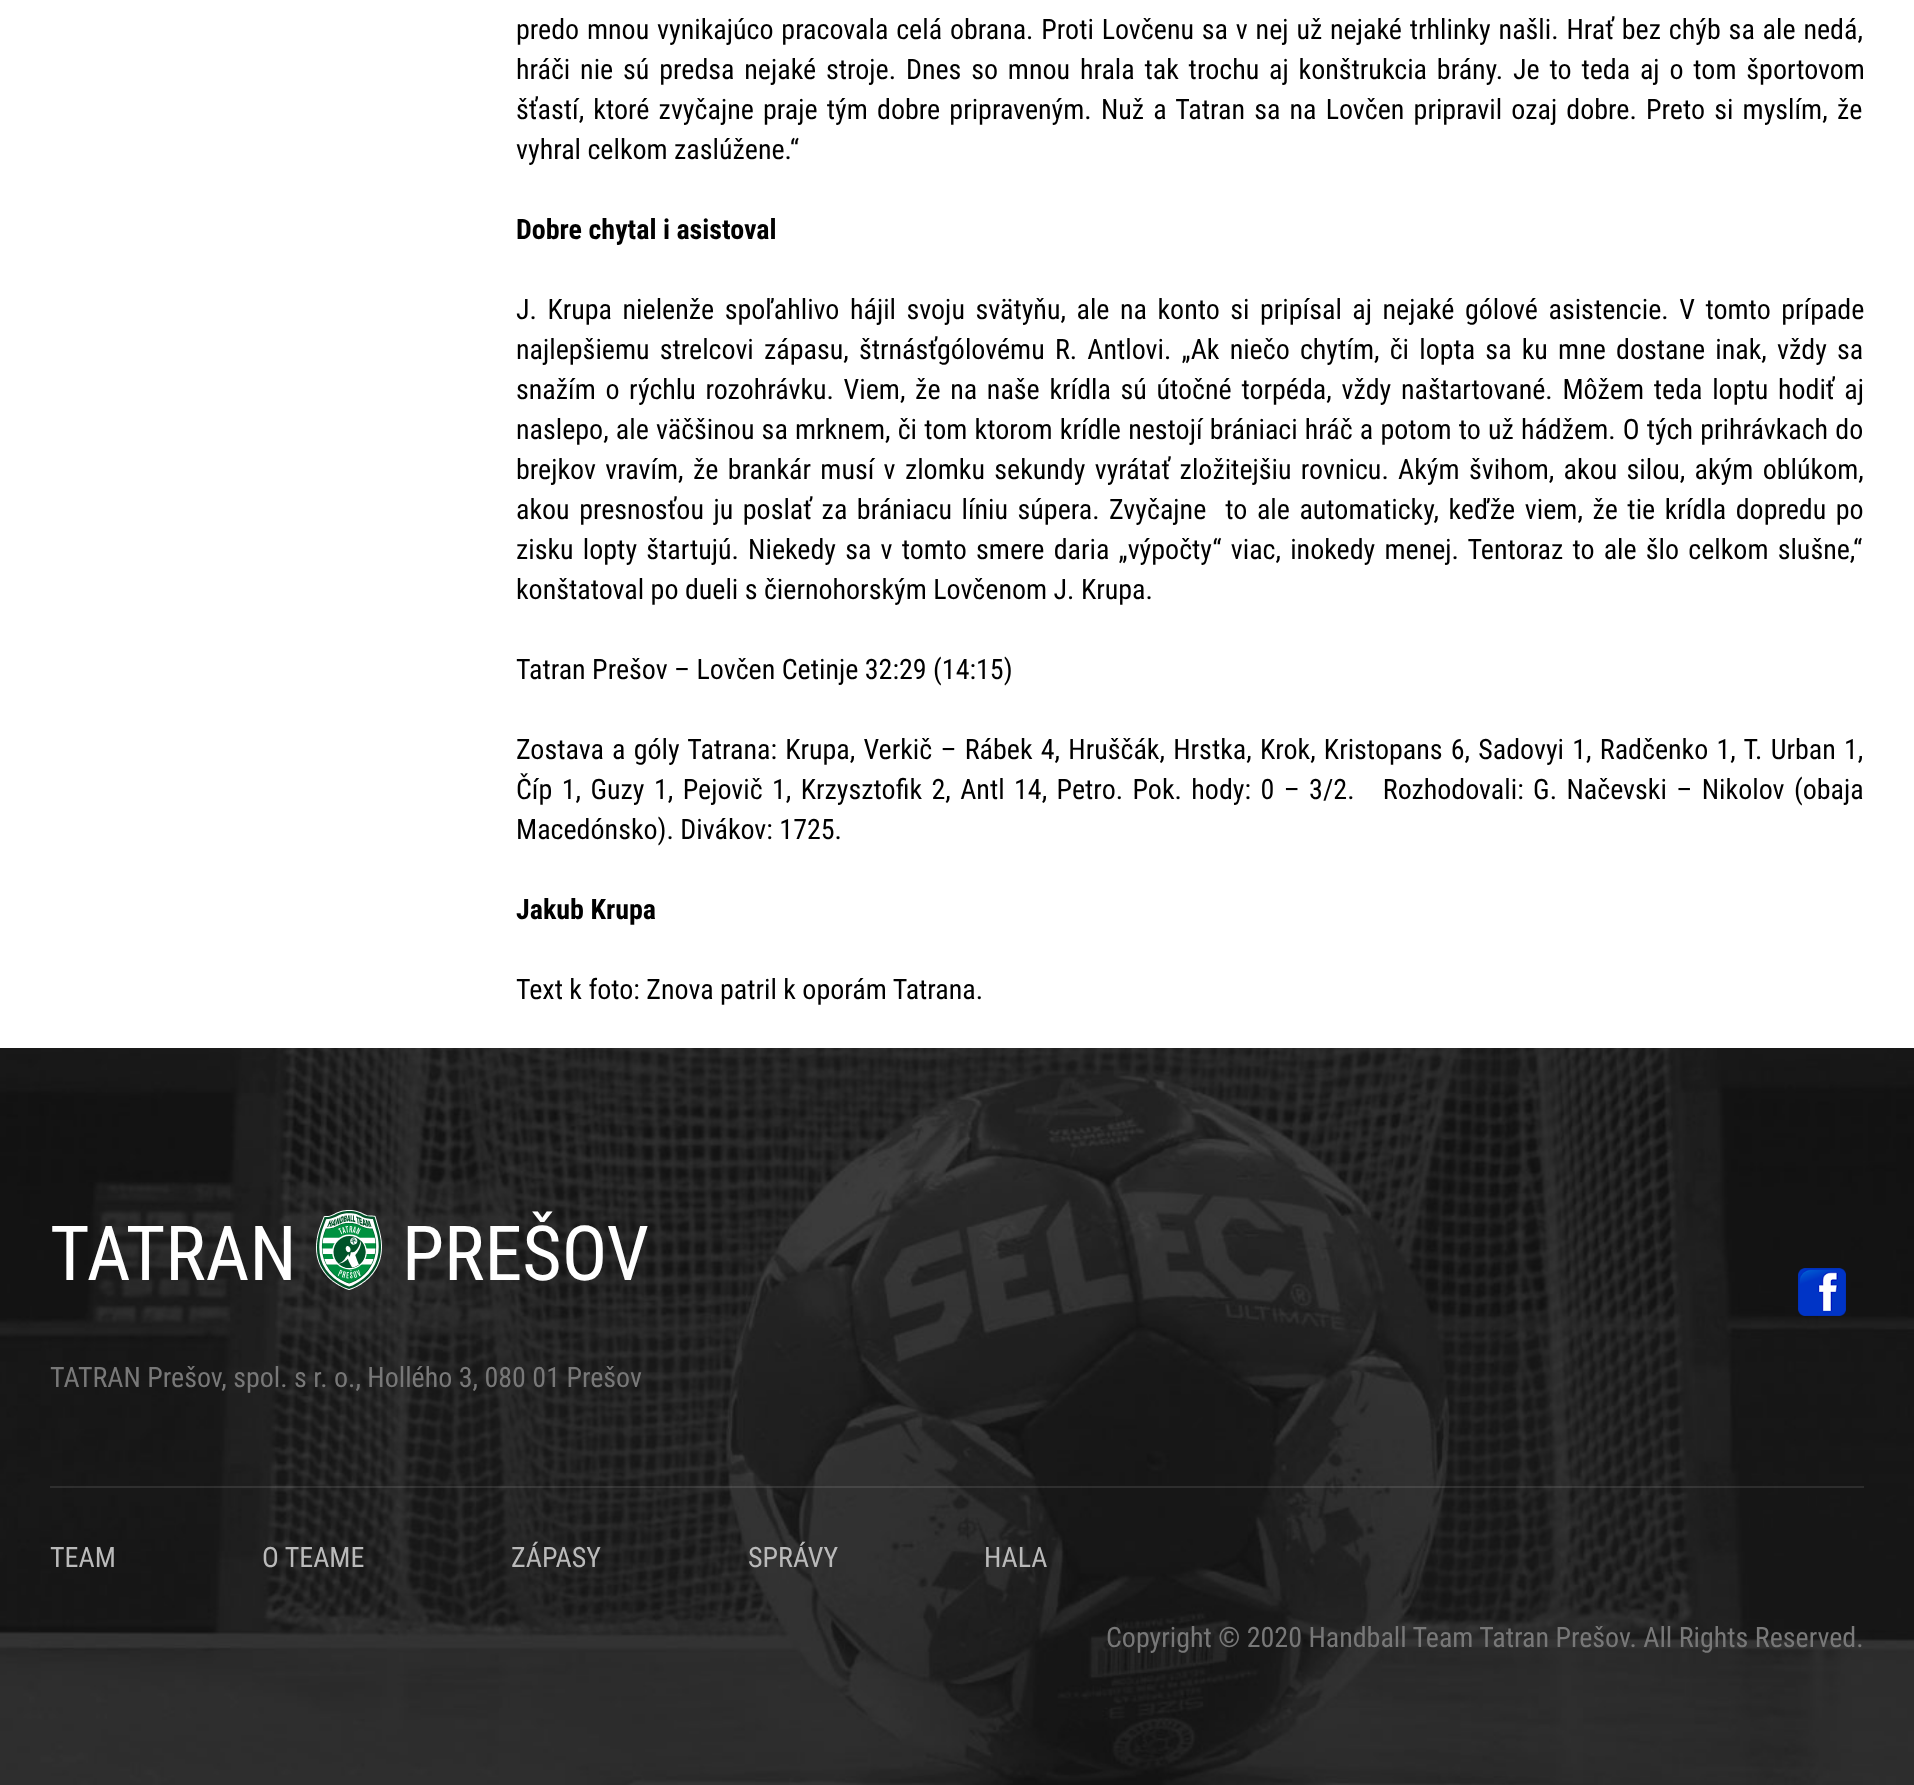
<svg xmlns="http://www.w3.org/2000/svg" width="1914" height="1785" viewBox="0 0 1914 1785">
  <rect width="100%" height="100%" fill="#fff"/>
  <image x="0" y="1048" width="1914" height="737" href="img/1.png"/>
  <image x="316" y="1210" width="66" height="80" href="img/2.png"/>
  <image x="1798" y="1268" width="48" height="48" href="img/3.png"/>
  <path d="M50 1486h1814v2H50z" fill="#ffffff1a"/>
  <g font-family="Roboto Condensed" font-size="28" fill="#000">
    <text x="516" y="39" word-spacing="1.4">predo mnou vynikajúco pracovala celá obrana. Proti Lovčenu sa v nej už nejaké trhlinky našli. Hrať bez chýb sa ale nedá,</text>
    <text x="516" y="79" word-spacing="3.4">hráči nie sú predsa nejaké stroje. Dnes so mnou hrala tak trochu aj konštrukcia brány. Je to teda aj o tom športovom</text>
    <text x="516" y="119" word-spacing="2.75">šťastí, ktoré zvyčajne praje tým dobre pripraveným. Nuž a Tatran sa na Lovčen pripravil ozaj dobre. Preto si myslím, že</text>
    <text x="516" y="159">vyhral celkom zaslúžene.“</text>
  </g>
  <text x="516" y="239" font-family="Roboto Condensed" font-size="28" font-weight="bold" fill="#000">Dobre chytal i asistoval</text>
  <g font-family="Roboto Condensed" font-size="28" fill="#000">
    <text x="516" y="319" word-spacing="4.1">J. Krupa nielenže spoľahlivo hájil svoju svätyňu, ale na konto si pripísal aj nejaké gólové asistencie. V tomto prípade</text>
    <text x="516" y="359" word-spacing="3.75">najlepšiemu strelcovi zápasu, štrnásťgólovému R. Antlovi. „Ak niečo chytím, či lopta sa ku mne dostane inak, vždy sa</text>
    <text x="516" y="399" word-spacing="3.25">snažím o rýchlu rozohrávku. Viem, že na naše krídla sú útočné torpéda, vždy naštartované. Môžem teda loptu hodiť aj</text>
    <text x="516" y="439" word-spacing="0.75">naslepo, ale väčšinou sa mrknem, či tom ktorom krídle nestojí brániaci hráč a potom to už hádžem. O tých prihrávkach do</text>
    <text x="516" y="479" word-spacing="2.9">brejkov vravím, že brankár musí v zlomku sekundy vyrátať zložitejšiu rovnicu. Akým švihom, akou silou, akým oblúkom,</text>
    <text x="516" y="519" word-spacing="3.1" xml:space="preserve">akou presnosťou ju poslať za brániacu líniu súpera. Zvyčajne  to ale automaticky, keďže viem, že tie krídla dopredu po</text>
    <text x="516" y="559" word-spacing="2.75">zisku lopty štartujú. Niekedy sa v tomto smere daria „výpočty“ viac, inokedy menej. Tentoraz to ale šlo celkom slušne,“</text>
    <text x="516" y="599">konštatoval po dueli s čiernohorským Lovčenom J. Krupa.</text>
    <text x="516" y="679">Tatran Prešov – Lovčen Cetinje 32:29 (14:15)</text>
    <text x="516" y="759" word-spacing="1.8">Zostava a góly Tatrana: Krupa, Verkič – Rábek 4, Hruščák, Hrstka, Krok, Kristopans 6, Sadovyi 1, Radčenko 1, T. Urban 1,</text>
    <text x="516" y="799" word-spacing="3" xml:space="preserve">Číp 1, Guzy 1, Pejovič 1, Krzysztofik 2, Antl 14, Petro. Pok. hody: 0 – 3/2.   Rozhodovali: G. Načevski – Nikolov (obaja</text>
    <text x="516" y="839">Macedónsko). Divákov: 1725.</text>
  </g>
  <text x="516" y="919" font-family="Roboto Condensed" font-size="28" font-weight="bold" fill="#000">Jakub Krupa</text>
  <text x="516" y="999" font-family="Roboto Condensed" font-size="28" fill="#000">Text k foto: Znova patril k oporám Tatrana.</text>
  <g font-family="Roboto Condensed" font-size="76" fill="#fff">
    <text x="50" y="1280">TATRAN</text>
    <text x="402" y="1280">PREŠOV</text>
  </g>
  <text x="50" y="1387" font-family="Roboto Condensed" font-size="28" fill="#787878">TATRAN Prešov, spol. s r. o., Hollého 3, 080 01 Prešov</text>
  <g font-family="Roboto Condensed" font-size="28" fill="#bababa">
    <text x="50" y="1567">TEAM</text>
    <text x="262" y="1567">O TEAME</text>
    <text x="511" y="1567">ZÁPASY</text>
    <text x="748" y="1567">SPRÁVY</text>
    <text x="984" y="1567">HALA</text>
  </g>
  <text x="1106" y="1647" font-family="Roboto Condensed" font-size="28" fill="#787878">Copyright © 2020 Handball Team Tatran Prešov. All Rights Reserved.</text>
</svg>
